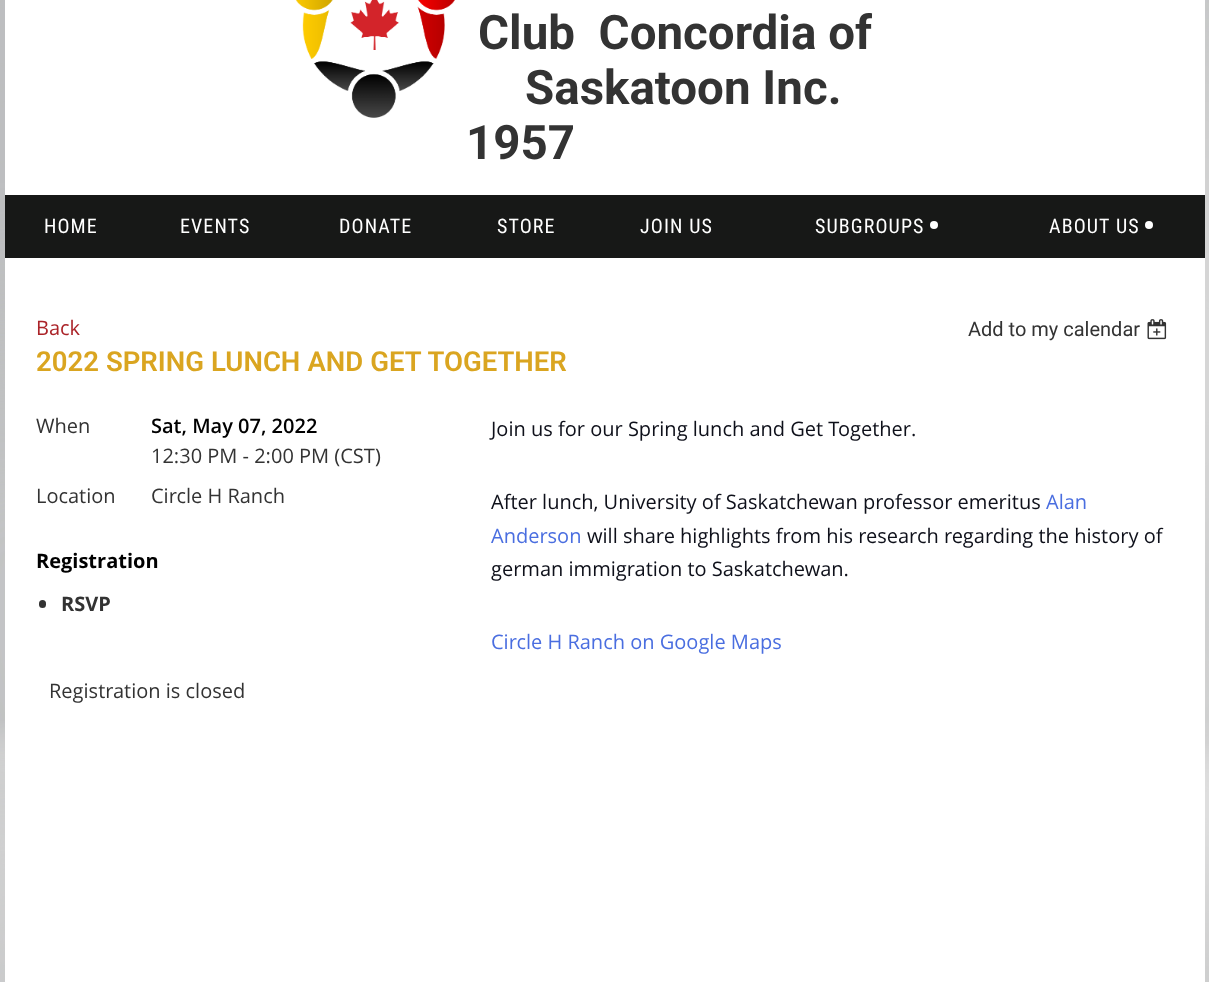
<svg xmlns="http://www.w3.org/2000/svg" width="1209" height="982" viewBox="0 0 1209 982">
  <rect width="100%" height="100%" fill="#fff"/>
  <image x="0" y="0" width="1209" height="982" href="img/1.png"/>
  <path d="M5 0h1200v195H5z" fill="#fff"/>
  <image x="295" y="0" width="160" height="118" href="img/2.png"/>
  <path d="M5 195h1200v63H5z" fill="#171817"/>
  <circle cx="934" cy="225" r="4" fill="#fff"/>
  <circle cx="1149" cy="225" r="4" fill="#fff"/>
  <path d="M5 258h1200v724H5z" fill="#fff"/>
  <image x="1147" y="319" width="20" height="21" href="img/3.png"/>
  <rect x="39" y="600" width="7" height="8" rx="3.5" fill="#333"/>
  <g font-family="Roboto" font-size="47.5" font-weight="bold" fill="#333">
    <text x="478" y="49" xml:space="preserve">Club  Concordia of</text>
    <text x="525" y="104">Saskatoon Inc.</text>
    <text x="466" y="159">1957</text>
  </g>
  <g font-family="Roboto Condensed" font-size="20" letter-spacing="1.1" fill="#fff">
    <text x="44" y="233">HOME</text>
    <text x="180" y="233">EVENTS</text>
    <text x="339" y="233">DONATE</text>
    <text x="497" y="233">STORE</text>
    <text x="640" y="233">JOIN US</text>
    <text x="815" y="233">SUBGROUPS</text>
    <text x="1049" y="233">ABOUT US</text>
  </g>
  <text x="36" y="335" font-family="Open Sans" font-size="20" fill="#ab2328">Back</text>
  <text x="968" y="336" font-family="Roboto" font-size="20" fill="#333">Add to my calendar</text>
  <text x="36" y="371" word-spacing="0.25" font-family="Roboto" font-size="27.5" font-weight="600" fill="#daa520">2022 SPRING LUNCH AND GET TOGETHER</text>
  <text x="36" y="433" font-family="Open Sans" font-size="20" fill="#333">When</text>
  <text x="151" y="433" font-family="Open Sans" font-size="20" font-weight="600" fill="#000">Sat, May 07, 2022</text>
  <g font-family="Open Sans" font-size="20" fill="#333">
    <text x="151" y="463">12:30 PM - 2:00 PM (CST)</text>
    <text x="36" y="503">Location</text>
    <text x="151" y="503">Circle H Ranch</text>
  </g>
  <text x="36" y="568" font-family="Open Sans" font-size="20" font-weight="bold" fill="#000">Registration</text>
  <text x="61" y="611" font-family="Open Sans" font-size="20" font-weight="bold" fill="#333">RSVP</text>
  <text x="49" y="698" font-family="Open Sans" font-size="20" fill="#333">Registration is closed</text>
  <g font-family="Open Sans" font-size="20" fill="#0e101a">
    <text x="491" y="436">Join us for our Spring lunch and Get Together.</text>
    <text x="491" y="509">After lunch, University of Saskatchewan professor emeritus</text>
  </g>
  <g font-family="Open Sans" font-size="20" fill="#4a6ee0">
    <text x="1046" y="509">Alan</text>
    <text x="491" y="543">Anderson</text>
  </g>
  <g font-family="Open Sans" font-size="20" fill="#0e101a">
    <text x="587" y="543">will share highlights from his research regarding the history of</text>
    <text x="491" y="576">german immigration to Saskatchewan.</text>
  </g>
  <text x="491" y="649" font-family="Open Sans" font-size="20" fill="#4a6ee0">Circle H Ranch on Google Maps</text>
</svg>
